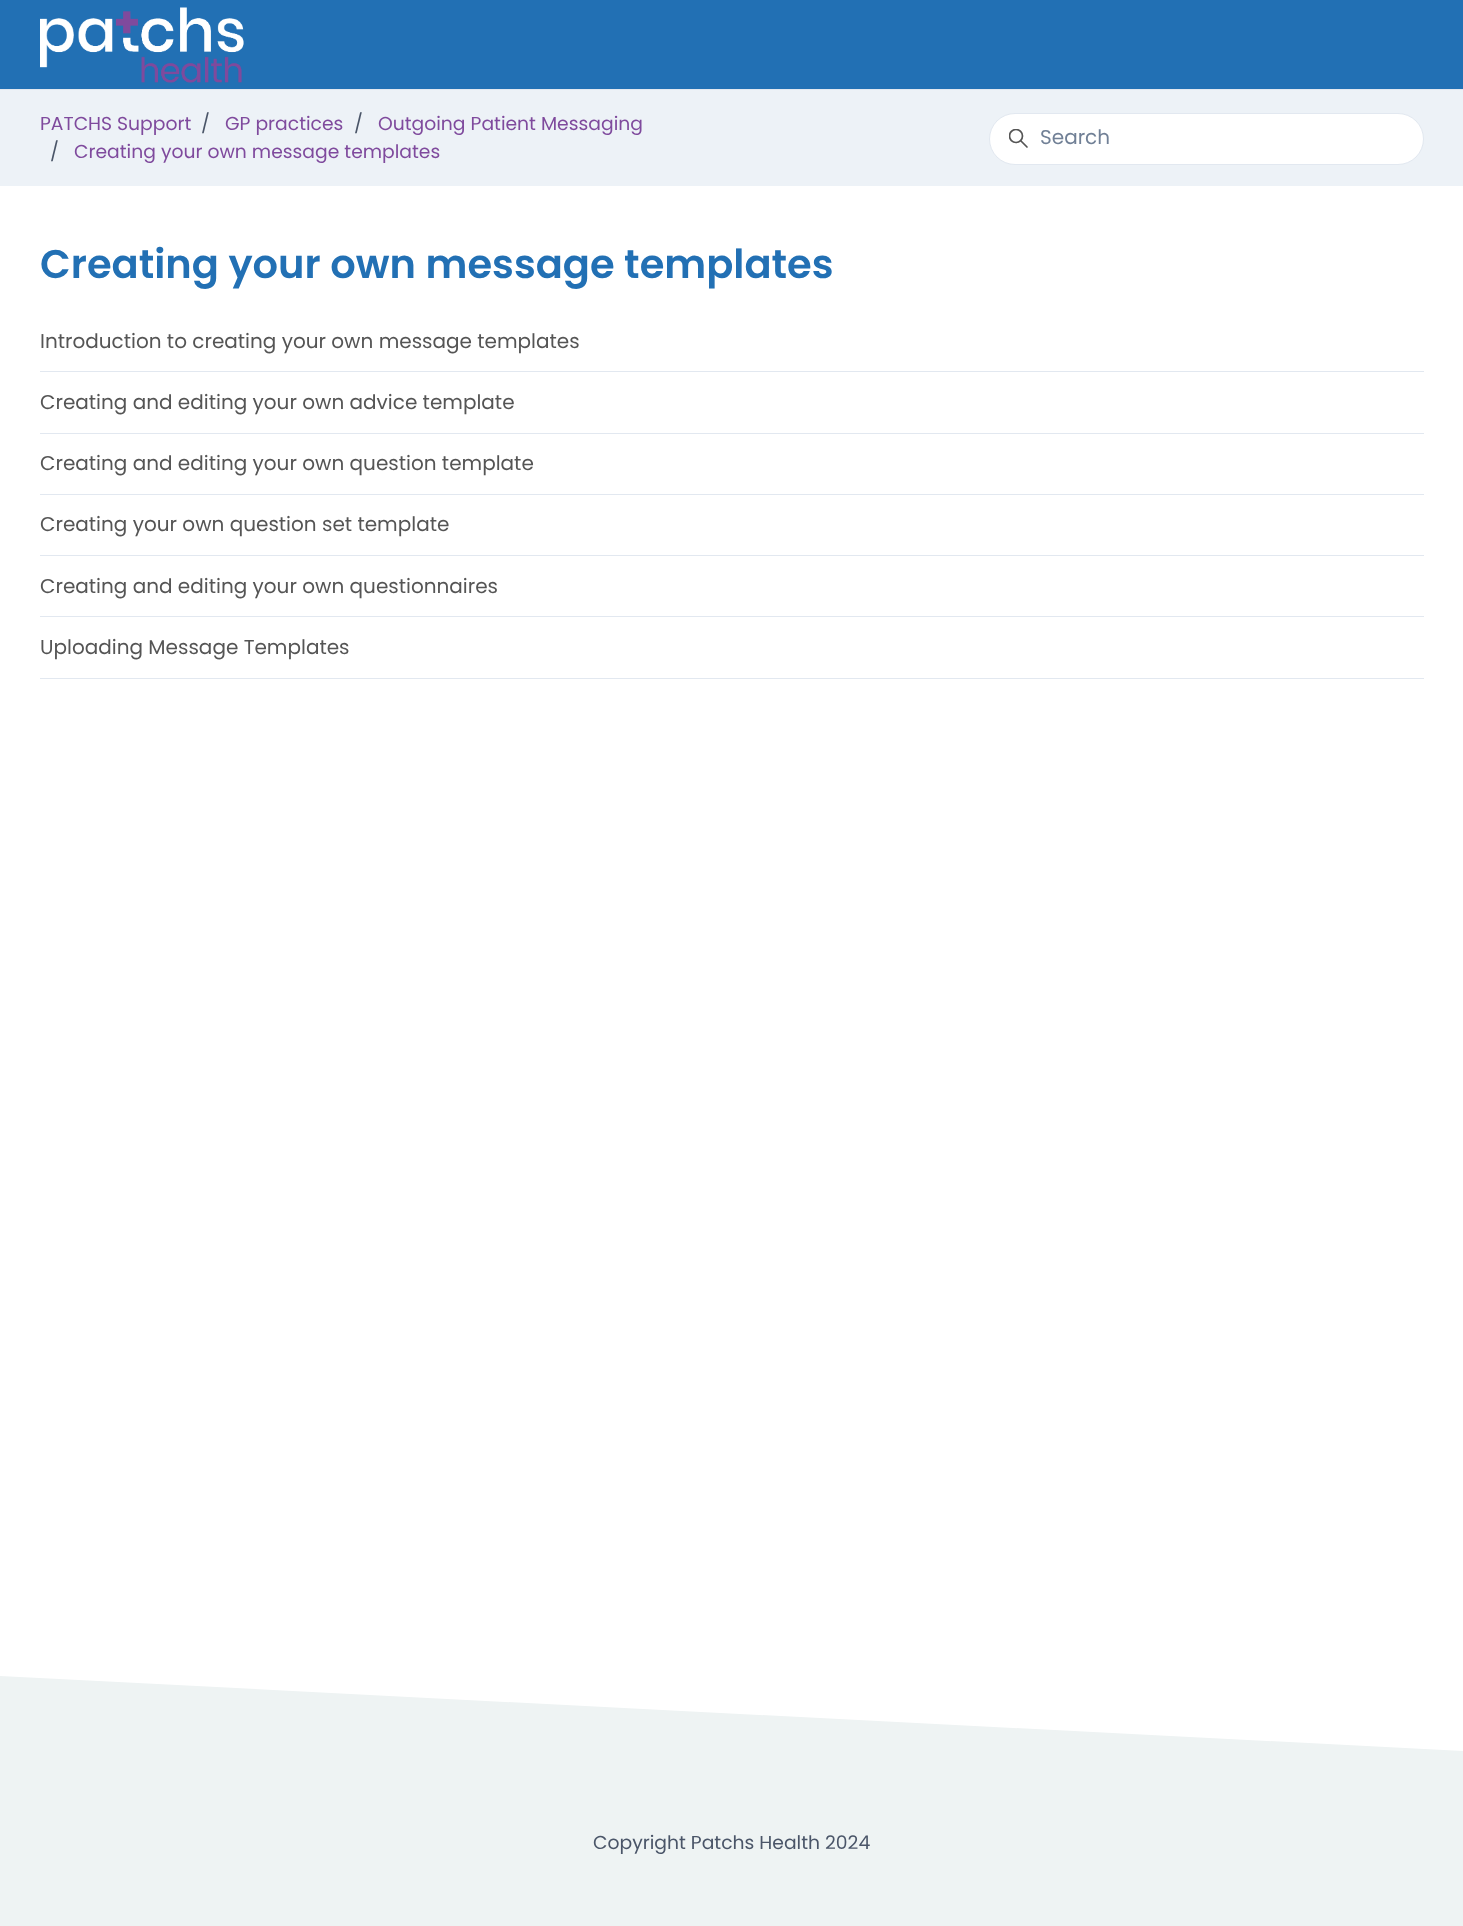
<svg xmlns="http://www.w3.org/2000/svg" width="1463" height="1926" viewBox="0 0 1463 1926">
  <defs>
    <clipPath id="clip1"><path d="M1009 129h20v20H1009z"/></clipPath>
  </defs>
  <rect width="100%" height="100%" fill="#fff"/>
  <path d="M0 0h1463v89H0z" fill="#2270b4"/>
  <path d="M0 89h1463v1H0z" fill="#e2e8f0"/>
  <image x="40" y="7" width="204" height="76" href="img/1.png"/>
  <path d="M0 90h1463v96H0z" fill="#edf2f7"/>
  <rect x="989.5" y="113.5" width="434" height="51" rx="25.5" fill="#fff" stroke="#e2e8f0"/>
  <g clip-path="url(#clip1)">
    <circle cx="1016" cy="136" r="6.5" fill="none" stroke="#555" stroke-width="1.7"/>
  </g>
  <path d="M1027 147L1021 141" fill="none" stroke="#555" stroke-width="1.7" stroke-linecap="round"/>
  <path d="M40 371h1384v1H40z" fill="#e2e8f0"/>
  <path d="M40 433h1384v1H40z" fill="#e2e8f0"/>
  <path d="M40 494h1384v1H40z" fill="#e2e8f0"/>
  <path d="M40 555h1384v1H40z" fill="#e2e8f0"/>
  <path d="M40 616h1384v1H40z" fill="#e2e8f0"/>
  <path d="M40 678h1384v1H40z" fill="#e2e8f0"/>
  <path d="M0 1676h1463v250H0z" fill="#eef3f3"/>
  <path d="M0 1676V1671H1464V1751Z" fill="#fff"/>
  <text x="40" y="130" font-family="Poppins" font-size="18.75" fill="#7f4a9d">PATCHS Support</text>
  <text x="201" y="130" font-family="Poppins" font-size="18.75" fill="#4a5568">/</text>
  <text x="225" y="130" font-family="Poppins" font-size="18.75" fill="#7f4a9d">GP practices</text>
  <text x="354" y="130" font-family="Poppins" font-size="18.75" fill="#4a5568">/</text>
  <text x="378" y="130" font-family="Poppins" font-size="18.75" fill="#7f4a9d">Outgoing Patient Messaging</text>
  <text x="50" y="158" font-family="Poppins" font-size="18.75" fill="#4a5568">/</text>
  <text x="74" y="158" font-family="Poppins" font-size="18.75" fill="#7f4a9d">Creating your own message templates</text>
  <text x="1040" y="144" font-family="Poppins" font-size="20" fill="#718096">Search</text>
  <text x="40" y="278" font-family="Poppins" font-size="40" font-weight="600" fill="#2270b4">Creating your own message templates</text>
  <g font-family="Poppins" font-size="20" fill="#555">
    <text x="40" y="348">Introduction to creating your own message templates</text>
    <text x="40" y="409">Creating and editing your own advice template</text>
    <text x="40" y="470">Creating and editing your own question template</text>
    <text x="40" y="531">Creating your own question set template</text>
    <text x="40" y="593">Creating and editing your own questionnaires</text>
    <text x="40" y="654">Uploading Message Templates</text>
  </g>
  <text x="593" y="1849" font-family="Poppins" font-size="18.75" fill="#4a5568">Copyright Patchs Health 2024</text>
</svg>
